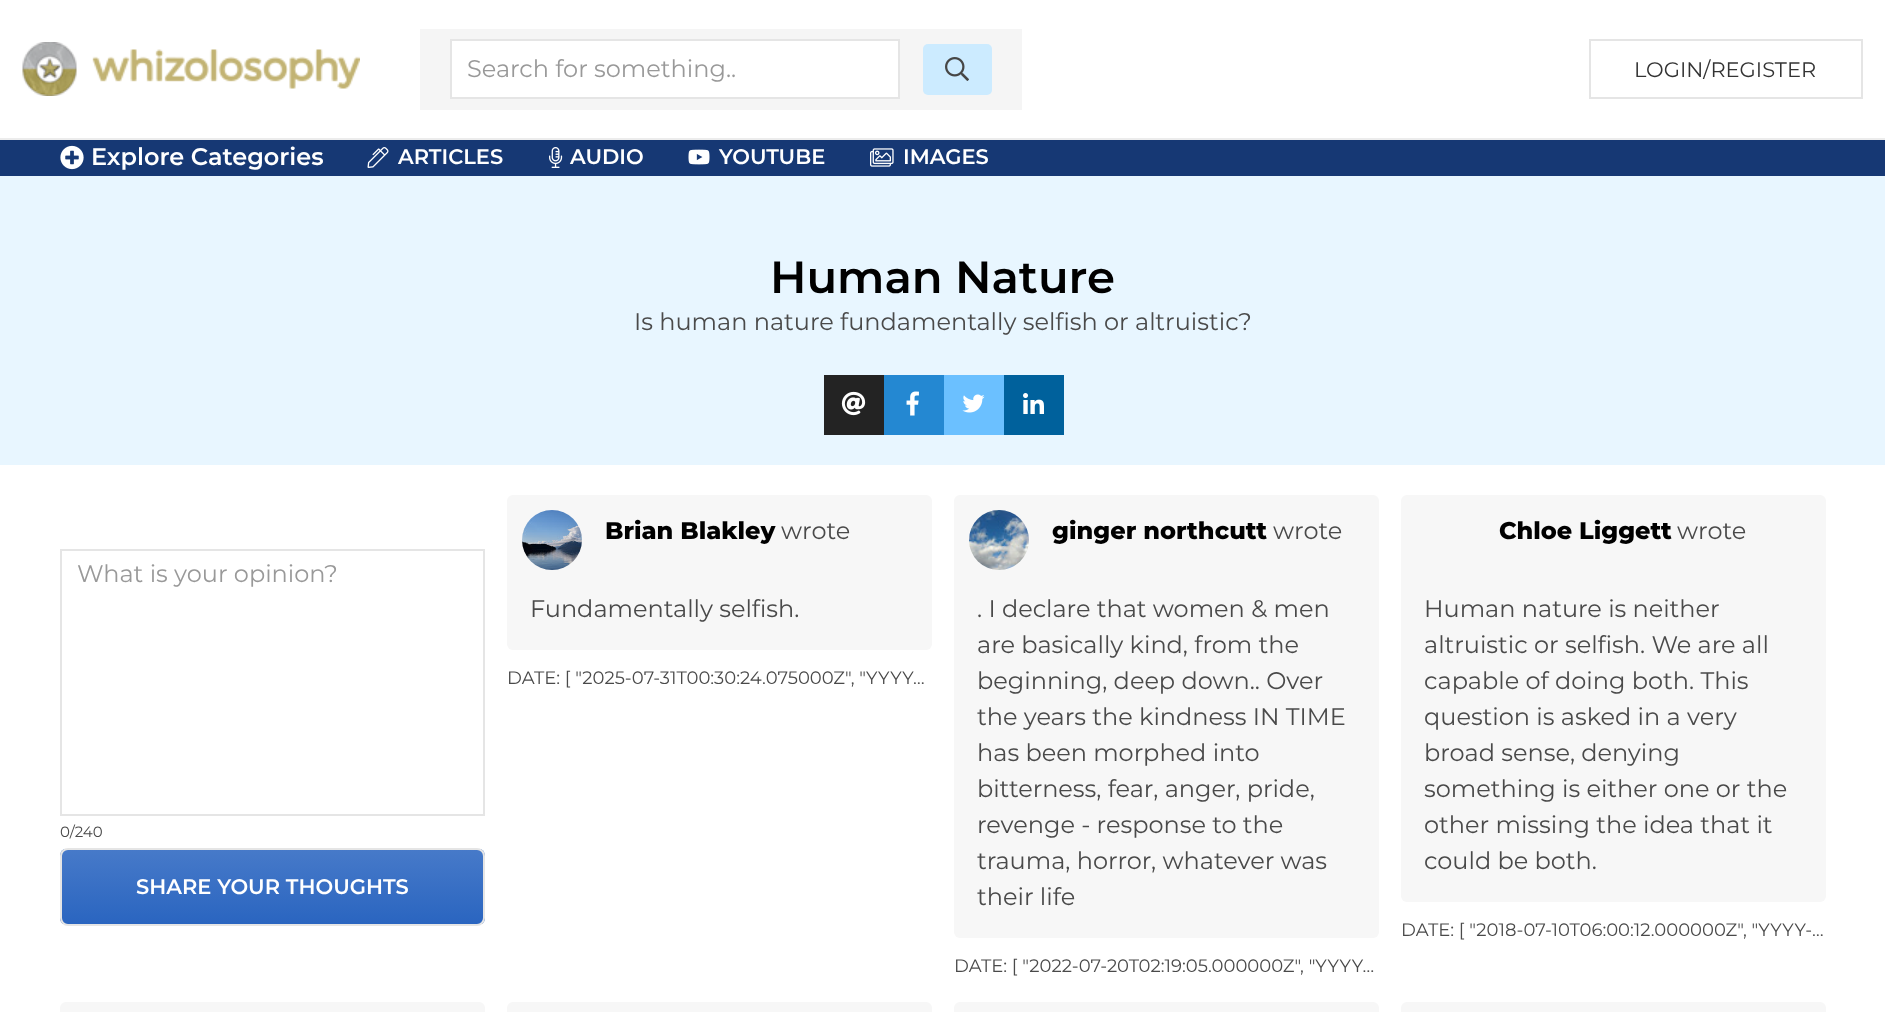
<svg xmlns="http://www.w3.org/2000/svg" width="1885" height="1012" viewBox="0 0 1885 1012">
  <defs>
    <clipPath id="clip1"><rect x="60" y="848" width="425" height="78" rx="8"/></clipPath>
    <linearGradient id="g1" gradientUnits="userSpaceOnUse" x1="272" y1="849" x2="272" y2="924"><stop offset="0" stop-color="#477ac9"/><stop offset="1" stop-color="#2a65c0"/></linearGradient>
  </defs>
  <rect width="100%" height="100%" fill="#fff"/>
  <path d="M0 138h1885v2H0z" fill="#ececec"/>
  <image x="22" y="42" width="338" height="54" href="img/1.png"/>
  <path d="M420 29h602v81H420z" fill="#f5f5f5"/>
  <path d="M451 40h448v58H451z" fill="#fff" stroke="#e5e5e5" stroke-width="2"/>
  <rect x="923" y="44" width="69" height="51" rx="5" fill="#ccebff"/>
  <image x="945" y="57" width="24" height="24" href="img/2.png"/>
  <path d="M1590 40h272v58H1590z" fill="none" stroke="#e5e5e5" stroke-width="2"/>
  <path d="M0 140h1885v36H0z" fill="#163874"/>
  <image x="60" y="145" width="24" height="25" href="img/3.png"/>
  <image x="367" y="147" width="22" height="21" href="img/4.png"/>
  <image x="549" y="147" width="14" height="21" href="img/5.png"/>
  <image x="688" y="149" width="22" height="16" href="img/6.png"/>
  <image x="870" y="148" width="24" height="19" href="img/7.png"/>
  <path d="M0 176h1885v289H0z" fill="#e8f6ff"/>
  <path d="M824 375h60v60H824z" fill="#232323"/>
  <image x="841" y="391" width="25" height="25" href="img/8.png"/>
  <path d="M884 375h60v60H884z" fill="#2488d2"/>
  <image x="906" y="391" width="13" height="25" href="img/9.png"/>
  <path d="M944 375h60v60H944z" fill="#6bc0ff"/>
  <image x="962" y="394" width="23" height="19" href="img/10.png"/>
  <path d="M1004 375h60v60H1004z" fill="#00619c"/>
  <image x="1023" y="393" width="21" height="21" href="img/11.png"/>
  <path d="M61 550h423v265H61z" fill="none" stroke="#e5e5e5" stroke-width="2"/>
  <g clip-path="url(#clip1)">
    <path d="M60 849h425v75H60z" fill="url(#g1)"/>
  </g>
  <rect x="61" y="849" width="423" height="76" rx="7" fill="none" stroke="#e5e5e5" stroke-width="2"/>
  <rect x="507" y="495" width="425" height="155" rx="6" fill="#f7f7f7"/>
  <image x="522" y="510" width="60" height="60" href="img/12.png"/>
  <rect x="954" y="495" width="425" height="443" rx="6" fill="#f7f7f7"/>
  <image x="969" y="510" width="60" height="60" href="img/13.png"/>
  <rect x="1401" y="495" width="425" height="407" rx="6" fill="#f7f7f7"/>
  <rect x="60" y="1002" width="425" height="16" rx="6" fill="#f7f7f7"/>
  <rect x="507" y="1002" width="425" height="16" rx="6" fill="#f7f7f7"/>
  <rect x="954" y="1002" width="425" height="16" rx="6" fill="#f7f7f7"/>
  <rect x="1401" y="1002" width="425" height="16" rx="6" fill="#f7f7f7"/>
  <text x="467" y="77" font-family="Montserrat" font-size="24" fill="#999">Search for something..</text>
  <text x="1634" y="77" font-family="Montserrat" font-size="21" fill="#333">LOGIN/REGISTER</text>
  <text x="91" y="165" font-family="Montserrat" font-size="24" font-weight="600" fill="#fff">Explore Categories</text>
  <g font-family="Montserrat" font-size="21" font-weight="600" fill="#fff">
    <text x="398" y="164">ARTICLES</text>
    <text x="570" y="164">AUDIO</text>
    <text x="719" y="164">YOUTUBE</text>
    <text x="903" y="164">IMAGES</text>
  </g>
  <text x="770" y="293" font-family="Montserrat" font-size="45" font-weight="600" fill="#000">Human Nature</text>
  <text x="634" y="330" font-family="Montserrat" font-size="24" fill="#4a4a4a">Is human nature fundamentally selfish or altruistic?</text>
  <text x="77" y="582" font-family="Montserrat" font-size="24" fill="#999">What is your opinion?</text>
  <text x="60" y="837" font-family="Montserrat" font-size="15" fill="#4a4a4a">0/240</text>
  <text x="136" y="894" font-family="Montserrat" font-size="21" font-weight="600" fill="#fff">SHARE YOUR THOUGHTS</text>
  <text x="605" y="539" font-family="Montserrat" font-size="24" font-weight="800" fill="#000">Brian Blakley</text>
  <g font-family="Montserrat" font-size="24" fill="#4a4a4a">
    <text x="781" y="539">wrote</text>
    <text x="530" y="617">Fundamentally selfish.</text>
  </g>
  <text x="507" y="684" font-family="Montserrat" font-size="18" fill="#4a4a4a">DATE: [ "2025-07-31T00:30:24.075000Z", "YYYY…</text>
  <text x="1052" y="539" font-family="Montserrat" font-size="24" font-weight="800" fill="#000">ginger northcutt</text>
  <g font-family="Montserrat" font-size="24" fill="#4a4a4a">
    <text x="1273" y="539">wrote</text>
    <text x="977" y="617">. I declare that women &amp; men</text>
    <text x="977" y="653">are basically kind, from the</text>
    <text x="977" y="689">beginning, deep down.. Over</text>
    <text x="977" y="725">the years the kindness IN TIME</text>
    <text x="977" y="761">has been morphed into</text>
    <text x="977" y="797">bitterness, fear, anger, pride,</text>
    <text x="977" y="833">revenge - response to the</text>
    <text x="977" y="869">trauma, horror, whatever was</text>
    <text x="977" y="905">their life</text>
  </g>
  <text x="954" y="972" font-family="Montserrat" font-size="18" fill="#4a4a4a">DATE: [ "2022-07-20T02:19:05.000000Z", "YYYY…</text>
  <text x="1499" y="539" font-family="Montserrat" font-size="24" font-weight="800" fill="#000">Chloe Liggett</text>
  <g font-family="Montserrat" font-size="24" fill="#4a4a4a">
    <text x="1677" y="539">wrote</text>
    <text x="1424" y="617">Human nature is neither</text>
    <text x="1424" y="653">altruistic or selfish. We are all</text>
    <text x="1424" y="689">capable of doing both. This</text>
    <text x="1424" y="725">question is asked in a very</text>
    <text x="1424" y="761">broad sense, denying</text>
    <text x="1424" y="797">something is either one or the</text>
    <text x="1424" y="833">other missing the idea that it</text>
    <text x="1424" y="869">could be both.</text>
  </g>
  <text x="1401" y="936" font-family="Montserrat" font-size="18" fill="#4a4a4a">DATE: [ "2018-07-10T06:00:12.000000Z", "YYYY-…</text>
</svg>
